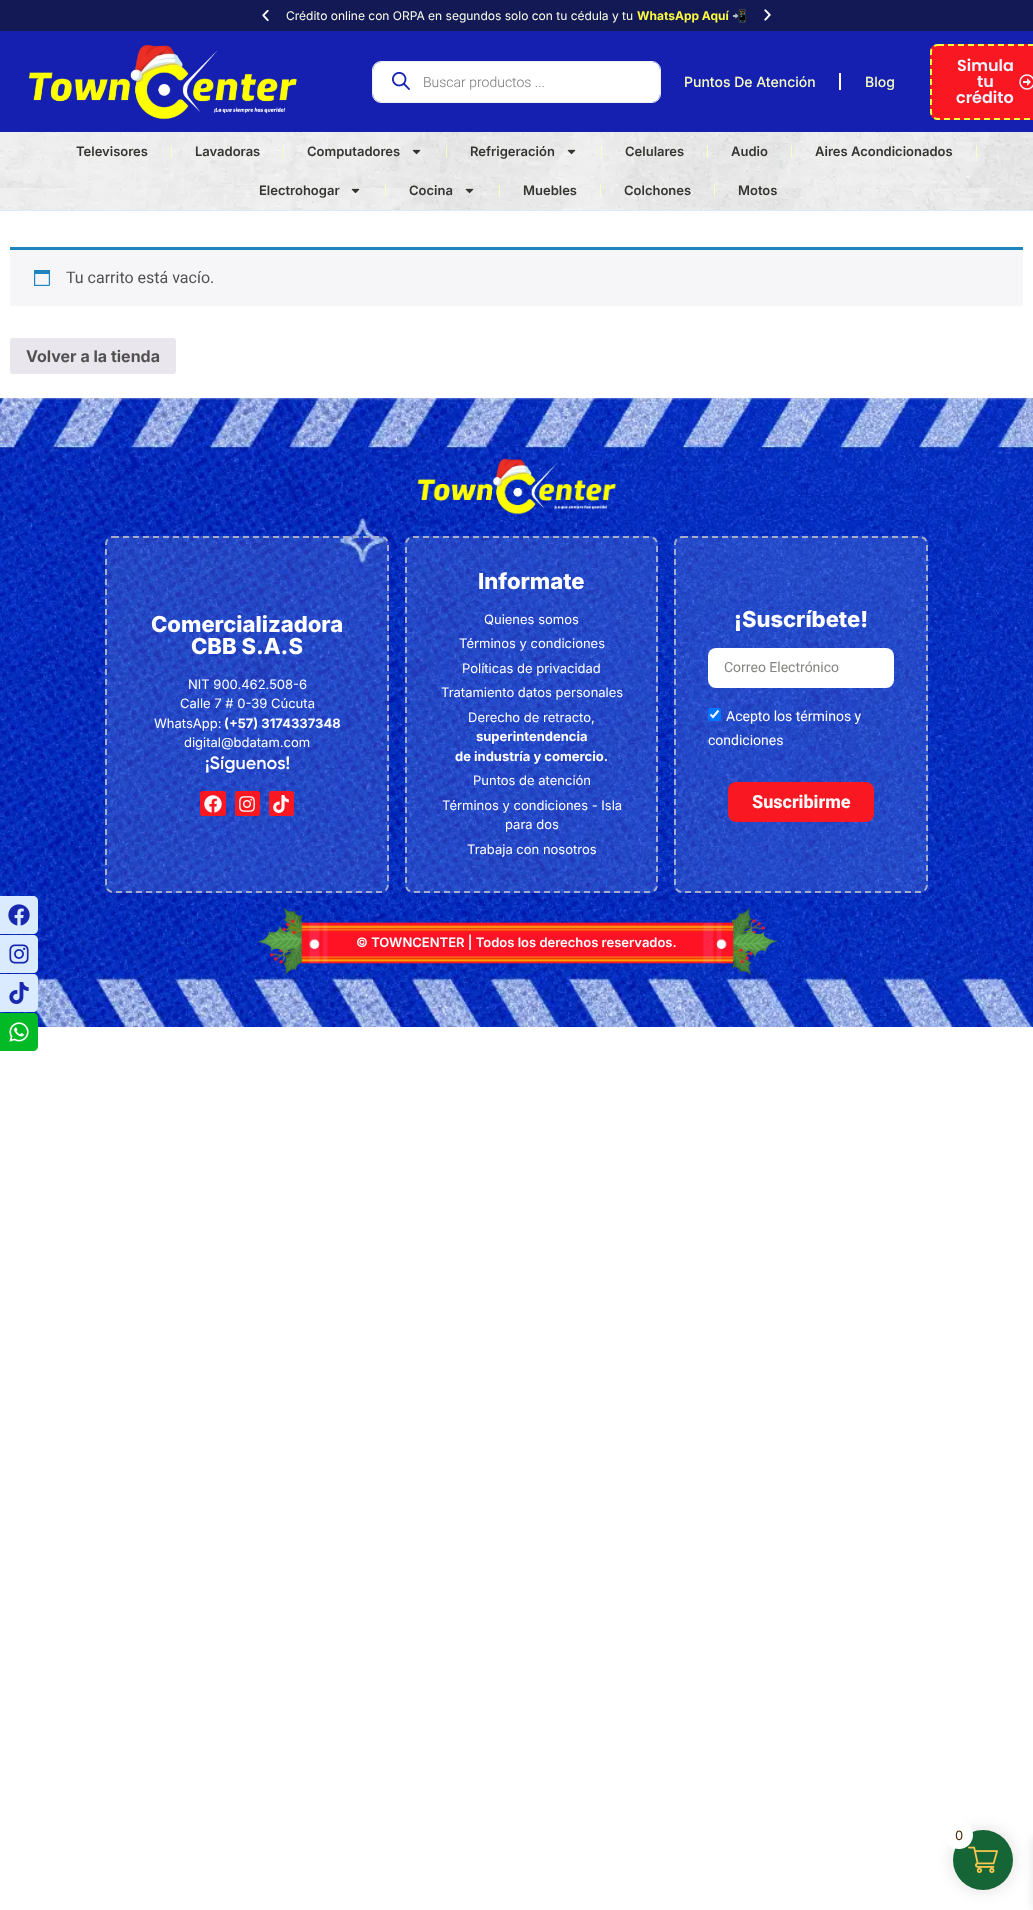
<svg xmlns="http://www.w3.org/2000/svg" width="1033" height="1910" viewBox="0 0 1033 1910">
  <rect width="100%" height="100%" fill="#fff"/>
  <path d="M0 0h1033v31H0z" fill="#121954"/>
  <image x="262" y="9" width="7" height="13" href="img/1.png"/>
  <image x="764" y="9" width="7" height="12" href="img/2.png"/>
  <path d="M0 31h1033v101H0z" fill="#1520b1"/>
  <image x="28" y="44" width="269" height="75" href="img/3.png"/>
  <rect x="372.5" y="61.5" width="288" height="41" rx="8.5" fill="none" stroke="#eee"/>
  <rect x="374" y="63" width="285" height="38" rx="7" fill="#fff" stroke="#fff" stroke-width="2"/>
  <image x="392" y="72" width="18" height="18" href="img/4.png"/>
  <path d="M839 73h2v17H839z" fill="#fff"/>
  <rect x="930" y="44" width="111" height="76" rx="8" fill="#f91821"/>
  <path d="M938 45H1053C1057 45 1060 48 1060 52V112C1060 116 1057 119 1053 119H938C934 119 931 116 931 112V52C931 48 934 45 938 45Z" fill="none" stroke="#f7ff43" stroke-width="2" stroke-dasharray="6 4"/>
  <image x="1019" y="74" width="14" height="16" href="img/5.png"/>
  <image x="0" y="132" width="1033" height="78" href="img/6.png"/>
  <path d="M0 210h1033v1H0z" fill="#daeaff"/>
  <path d="M171 145h1v13H171z" fill="#f8ffc2"/>
  <path d="M283 145h1v13H283z" fill="#f8ffc2"/>
  <image x="412" y="149" width="9" height="6" href="img/7.png"/>
  <path d="M446 145h1v13H446z" fill="#f8ffc2"/>
  <image x="567" y="149" width="9" height="6" href="img/8.png"/>
  <path d="M601 145h1v13H601z" fill="#f8ffc2"/>
  <path d="M707 145h1v13H707z" fill="#f8ffc2"/>
  <path d="M791 145h1v13H791z" fill="#f8ffc2"/>
  <path d="M976 145h1v13H976z" fill="#f8ffc2"/>
  <image x="351" y="188" width="9" height="6" href="img/9.png"/>
  <path d="M385 184h1v13H385z" fill="#f8ffc2"/>
  <image x="465" y="188" width="9" height="6" href="img/10.png"/>
  <path d="M499 184h1v13H499z" fill="#f8ffc2"/>
  <path d="M600 184h1v13H600z" fill="#f8ffc2"/>
  <path d="M714 184h1v13H714z" fill="#f8ffc2"/>
  <path d="M10 250h1013v56H10z" fill="#f6f5f8"/>
  <path d="M10 247h1013v3H10z" fill="#1e85be"/>
  <image x="34" y="270" width="16" height="16" href="img/11.png"/>
  <rect x="10" y="338" width="166" height="36" rx="3" fill="#e9e6ed"/>
  <image x="0" y="398" width="1033" height="629" href="img/12.png"/>
  <image x="417" y="458" width="199" height="57" href="img/13.png"/>
  <rect x="105" y="536" width="284" height="357" rx="8" fill="#daeaff26"/>
  <path d="M113 537H381C385 537 388 540 388 544V885C388 889 385 892 381 892H113C109 892 106 889 106 885V544C106 540 109 537 113 537Z" fill="none" stroke="#a5adcb" stroke-width="2" stroke-dasharray="6 4"/>
  <rect x="200" y="791" width="26" height="25" rx="2.5" fill="#f91821"/>
  <image x="204" y="795" width="18" height="18" href="img/14.png"/>
  <rect x="235" y="791" width="25" height="25" rx="2.5" fill="#f91821"/>
  <image x="239" y="796" width="16" height="16" href="img/15.png"/>
  <rect x="269" y="791" width="25" height="25" rx="2.5" fill="#f91821"/>
  <image x="273" y="795" width="16" height="18" href="img/16.png"/>
  <rect x="405" y="536" width="253" height="357" rx="8" fill="#daeaff26"/>
  <path d="M413 537H650C654 537 657 540 657 544V885C657 889 654 892 650 892H413C409 892 406 889 406 885V544C406 540 409 537 413 537Z" fill="none" stroke="#a5adcb" stroke-width="2" stroke-dasharray="6 4"/>
  <rect x="674" y="536" width="254" height="357" rx="8" fill="#daeaff26"/>
  <path d="M682 537H920C924 537 927 540 927 544V885C927 889 924 892 920 892H682C678 892 675 889 675 885V544C675 540 678 537 682 537Z" fill="none" stroke="#a5adcb" stroke-width="2" stroke-dasharray="6 4"/>
  <rect x="708" y="648" width="186" height="40" rx="8" fill="#fff"/>
  <rect x="708" y="708" width="13" height="13" rx="2" fill="#0075ff"/>
  <path d="M710.5 714.5L713 717L718.5 710.5" fill="none" stroke="#fff" stroke-width="2.1"/>
  <rect x="728" y="782" width="146" height="40" rx="8" fill="#f91821"/>
  <image x="257" y="907" width="521" height="69" href="img/17.png"/>
  <path d="M0 896H33C36 896 38 898 38 901V929C38 932 36 934 33 934H0Z" fill="#daeaff"/>
  <image x="8" y="904" width="22" height="22" href="img/18.png"/>
  <path d="M0 935H33C36 935 38 937 38 940V968C38 971 36 973 33 973H0Z" fill="#daeaff"/>
  <image x="9" y="944" width="20" height="20" href="img/19.png"/>
  <path d="M0 974H33C36 974 38 976 38 979V1007C38 1010 36 1012 33 1012H0Z" fill="#daeaff"/>
  <image x="9" y="982" width="20" height="22" href="img/20.png"/>
  <path d="M0 1013H33C36 1013 38 1015 38 1018V1046C38 1049 36 1051 33 1051H0Z" fill="#02ba26"/>
  <image x="9" y="1022" width="20" height="20" href="img/21.png"/>
  <rect x="951" y="1828" width="64" height="64" rx="32" fill="#0000001a" filter="blur(7.5px)"/>
  <circle cx="983" cy="1860" r="30" fill="#166536"/>
  <image x="968" y="1846" width="30" height="27" href="img/22.png"/>
  <circle cx="959" cy="1835" r="14" fill="#fff"/>
  <path d="M1033 1838h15v71H1033z" fill="#0000001a" filter="blur(5px)"/>
  <text x="286" y="20" font-family="Inter" font-size="12" fill="#fcfee8">Crédito online con ORPA en segundos solo con tu cédula y tu</text>
  <text x="637" y="20" font-family="Inter" font-size="12" font-weight="bold" fill="#fbfa41">WhatsApp Aquí</text>
  <text x="732" y="20" font-family="Noto Color Emoji" font-size="12" fill="#fcfee8">📲</text>
  <text x="423" y="87" font-family="Roboto" font-size="14" font-weight="300" fill="#777">Buscar productos ...</text>
  <g font-family="Inter" font-size="14" font-weight="500" fill="#f8ffc2">
    <text x="684" y="87">Puntos De Atención</text>
    <text x="865" y="87">Blog</text>
  </g>
  <g font-family="Poppins" font-size="16" font-weight="600" fill="#ebf3ff">
    <text x="957" y="71">Simula</text>
    <text x="977" y="87">tu</text>
    <text x="956" y="103">crédito</text>
  </g>
  <g font-family="Inter" font-size="13" font-weight="600" fill="#363430">
    <text x="76" y="156">Televisores</text>
    <text x="195" y="156">Lavadoras</text>
    <text x="307" y="156">Computadores</text>
    <text x="470" y="156">Refrigeración</text>
    <text x="625" y="156">Celulares</text>
    <text x="731" y="156">Audio</text>
    <text x="815" y="156">Aires Acondicionados</text>
    <text x="259" y="195">Electrohogar</text>
    <text x="409" y="195">Cocina</text>
    <text x="523" y="195">Muebles</text>
    <text x="624" y="195">Colchones</text>
    <text x="738" y="195">Motos</text>
  </g>
  <text x="66" y="283" font-family="Roboto" font-size="16" fill="#515151">Tu carrito está vacío.</text>
  <text x="26" y="362" font-family="Inter" font-size="16" font-weight="bold" fill="#515151">Volver a la tienda</text>
  <g font-family="Inter" font-size="22" font-weight="800" fill="#fff">
    <text x="151" y="632">Comercializadora</text>
    <text x="191" y="654">CBB S.A.S</text>
  </g>
  <g font-family="Inter" font-size="13" fill="#fff">
    <text x="188" y="689">NIT 900.462.508-6</text>
    <text x="180" y="708">Calle 7 # 0-39 Cúcuta</text>
    <text x="154" y="728">WhatsApp:</text>
  </g>
  <text x="224" y="728" font-family="Inter" font-size="13" font-weight="bold" fill="#fff">(+57) 3174337348</text>
  <text x="184" y="747" font-family="Inter" font-size="13" fill="#fff">digital@bdatam.com</text>
  <text x="205" y="769" font-family="Gilroy" font-size="18" font-weight="600" fill="#fff">¡Síguenos!</text>
  <text x="478" y="589" font-family="Inter" font-size="22" font-weight="800" fill="#fff">Informate</text>
  <g font-family="Inter" font-size="13" fill="#fff">
    <text x="484" y="624">Quienes somos</text>
    <text x="459" y="648">Términos y condiciones</text>
    <text x="462" y="673">Políticas de privacidad</text>
    <text x="441" y="697">Tratamiento datos personales</text>
    <text x="468" y="722">Derecho de retracto,</text>
  </g>
  <g font-family="Inter" font-size="13" font-weight="bold" fill="#fff">
    <text x="476" y="741">superintendencia</text>
    <text x="455" y="761">de industría y comercio.</text>
  </g>
  <g font-family="Inter" font-size="13" fill="#fff">
    <text x="473" y="785">Puntos de atención</text>
    <text x="442" y="810">Términos y condiciones - Isla</text>
    <text x="505" y="829">para dos</text>
    <text x="467" y="854">Trabaja con nosotros</text>
  </g>
  <text x="734" y="627" font-family="Inter" font-size="22" font-weight="800" fill="#fff">¡Suscríbete!</text>
  <text x="724" y="672" font-family="Roboto" font-size="14" fill="#868583">Correo Electrónico</text>
  <g font-family="Roboto" font-size="14" fill="#fff">
    <text x="726" y="721">Acepto los términos y</text>
    <text x="708" y="745">condiciones</text>
  </g>
  <text x="752" y="808" font-family="Roboto" font-size="18" font-weight="800" fill="#f9f9f9">Suscribirme</text>
  <text x="356" y="947" font-family="Inter" font-size="13" font-weight="600" fill="#fff">© TOWNCENTER | Todos los derechos reservados.</text>
  <text x="955" y="1840" font-family="Inter" font-size="13" fill="#432c05">0</text>
</svg>
